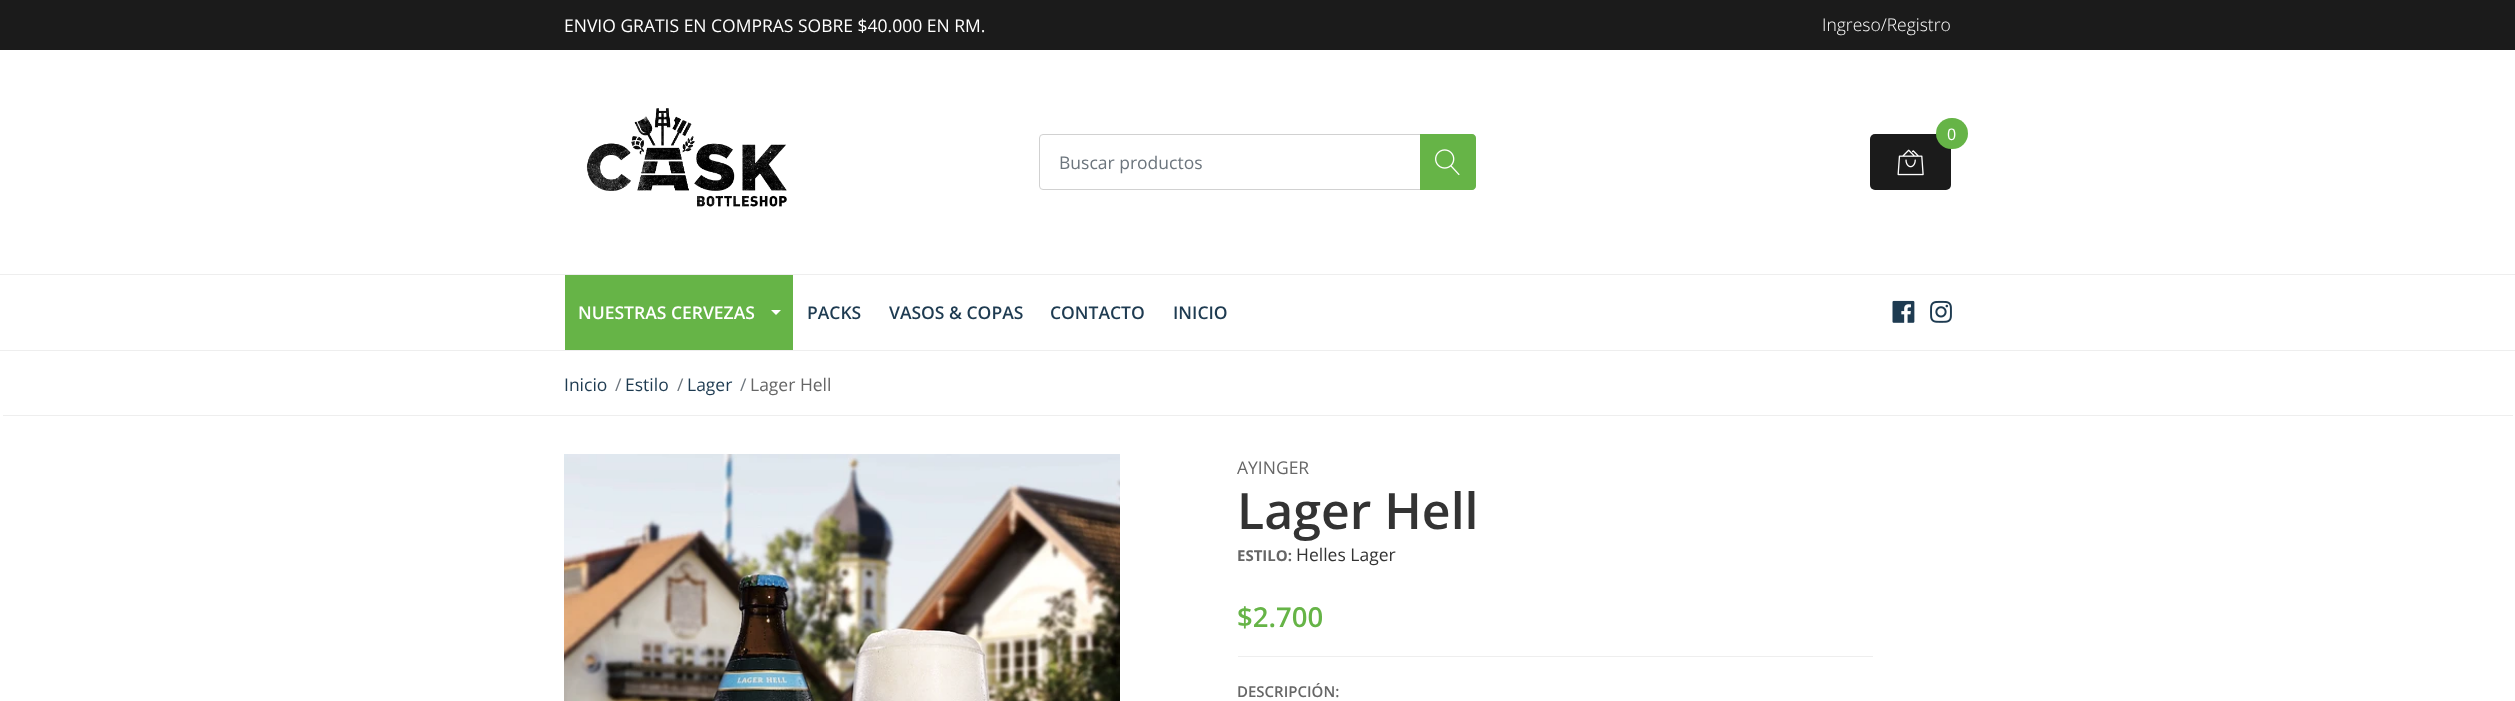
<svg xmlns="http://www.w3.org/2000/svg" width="2515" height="701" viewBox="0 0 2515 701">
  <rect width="100%" height="100%" fill="#fff"/>
  <path d="M0 0h2515v50H0z" fill="#1b1b1b"/>
  <image x="586" y="108" width="201" height="99" href="img/1.png"/>
  <rect x="1870" y="134" width="81" height="56" rx="5" fill="#1b1b1b"/>
  <image x="1897" y="149" width="27" height="27" href="img/2.png"/>
  <rect x="1936" y="118" width="32" height="31" rx="15.5" fill="#66b447"/>
  <rect x="1039.5" y="134.5" width="436" height="55" rx="3.5" fill="none" stroke="#d1d1d1"/>
  <path d="M1420 134H1472C1474 134 1476 136 1476 138V186C1476 188 1474 190 1472 190H1420Z" fill="#66b447"/>
  <image x="1435" y="149" width="25" height="27" href="img/3.png"/>
  <path d="M0 274h2515v1H0z" fill="#eee"/>
  <path d="M0 350h2515v1H0z" fill="#eee"/>
  <path d="M565 275h228v75H565z" fill="#66b447"/>
  <path d="M771 310H781L776 315Z" fill="#fff"/>
  <image x="1892" y="300" width="23" height="23" href="img/4.png"/>
  <image x="1930" y="300" width="22" height="23" href="img/5.png"/>
  <path d="M3 415h2510v1H3z" fill="#eee"/>
  <image x="564" y="454" width="556" height="247" href="img/6.png"/>
  <path d="M1238 656h635v1H1238z" fill="#eee"/>
  <text x="564" y="32" font-family="Open Sans" font-size="17.5" fill="#fff">ENVIO GRATIS EN COMPRAS SOBRE $40.000 EN RM.</text>
  <text x="1822" y="31" font-family="Open Sans" font-size="17.5" font-weight="300" fill="#fff">Ingreso/Registro</text>
  <text x="1947" y="140" font-family="Open Sans" font-size="16" fill="#fff">0</text>
  <text x="1059" y="169" font-family="Open Sans" font-size="17.5" fill="#6c757d">Buscar productos</text>
  <text x="578" y="319" font-family="Open Sans" font-size="17.5" font-weight="600" fill="#fff">NUESTRAS CERVEZAS</text>
  <g font-family="Open Sans" font-size="17.5" font-weight="600" fill="#1e3b51">
    <text x="807" y="319">PACKS</text>
    <text x="889" y="319">VASOS &amp; COPAS</text>
    <text x="1050" y="319">CONTACTO</text>
    <text x="1173" y="319">INICIO</text>
  </g>
  <text x="564" y="391" font-family="Open Sans" font-size="17.5" fill="#1e3b51">Inicio</text>
  <text x="615" y="391" font-family="Open Sans" font-size="17.5" fill="#6c757d">/</text>
  <text x="625" y="391" font-family="Open Sans" font-size="17.5" fill="#1e3b51">Estilo</text>
  <text x="677" y="391" font-family="Open Sans" font-size="17.5" fill="#6c757d">/</text>
  <text x="687" y="391" font-family="Open Sans" font-size="17.5" fill="#1e3b51">Lager</text>
  <text x="740" y="391" font-family="Open Sans" font-size="17.5" fill="#6c757d">/</text>
  <g font-family="Open Sans" font-size="17.5" fill="#666">
    <text x="750" y="391">Lager Hell</text>
    <text x="1237" y="474">AYINGER</text>
  </g>
  <text x="1237" y="529" font-family="Open Sans" font-size="50" font-weight="600" fill="#333">Lager Hell</text>
  <text x="1237" y="561" font-family="Open Sans" font-size="15" font-weight="bold" fill="#666">ESTILO:</text>
  <text x="1296" y="561" font-family="Open Sans" font-size="17.5" fill="#333">Helles Lager</text>
  <text x="1237" y="627" font-family="Open Sans" font-size="27.5" font-weight="600" fill="#66b447">$2.700</text>
  <text x="1237" y="697" font-family="Open Sans" font-size="15" font-weight="600" fill="#666">DESCRIPCIÓN:</text>
</svg>
